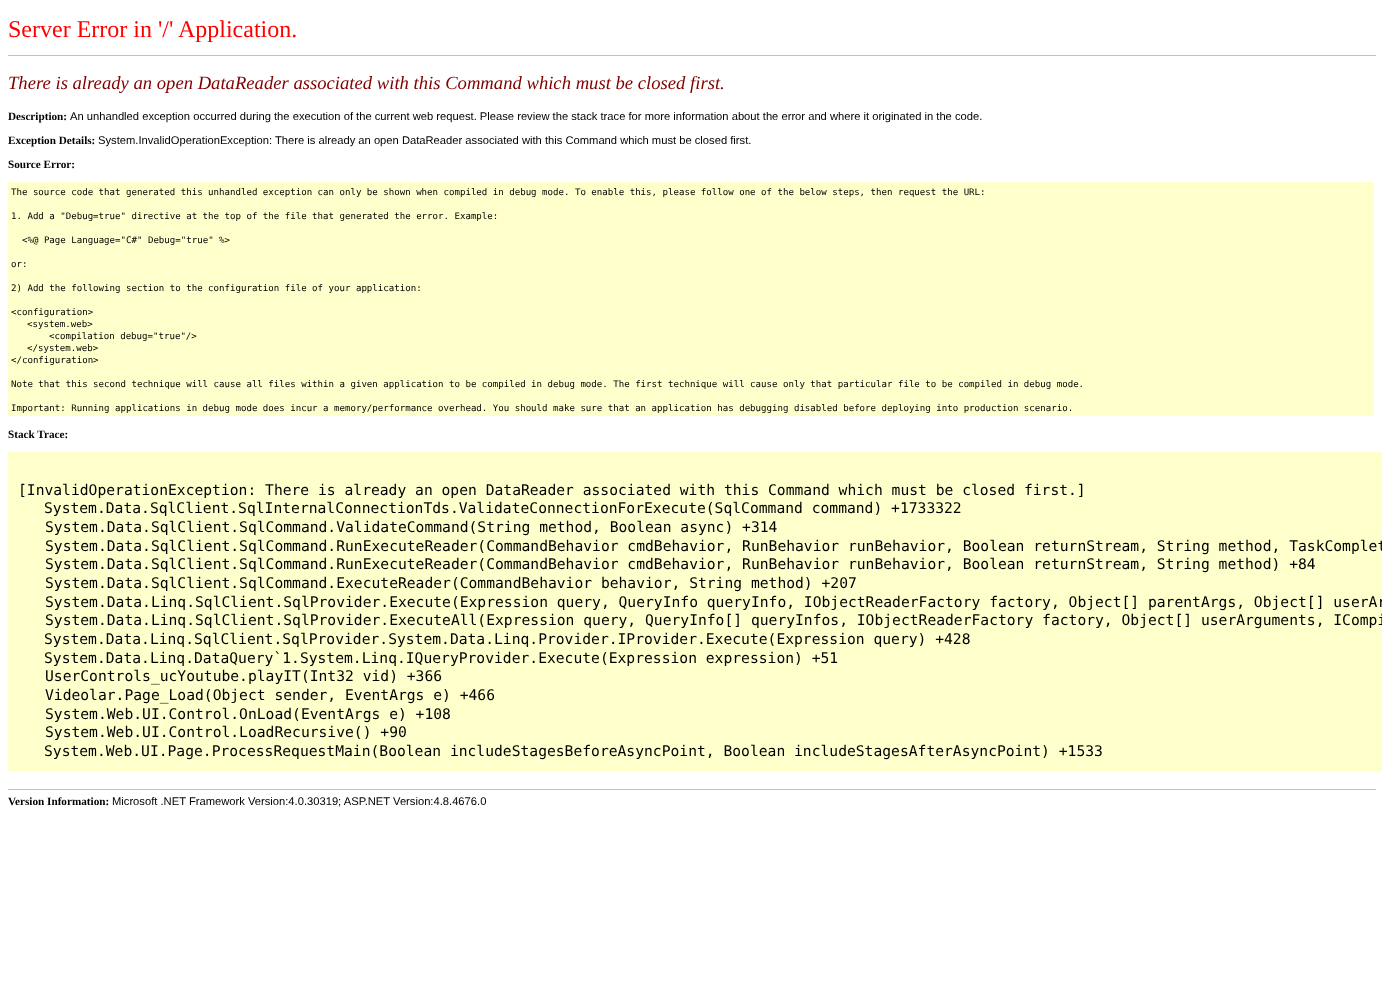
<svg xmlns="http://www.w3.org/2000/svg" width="1382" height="981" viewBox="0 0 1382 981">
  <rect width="100%" height="100%" fill="#fff"/>
  <path d="M8 55h1368v1H8z" fill="#c0c0c0"/>
  <path d="M8 182h1366v234H8z" fill="#ffc"/>
  <path d="M8 452h1374v319H8z" fill="#ffc"/>
  <path d="M8 789h1368v1H8z" fill="#c0c0c0"/>
  <text x="8" y="37" font-family="Liberation Serif" font-size="24" fill="#f00">Server Error in '/' Application.</text>
  <text x="8" y="89" font-family="Liberation Serif" font-size="18.65" font-style="italic" fill="#800000">There is already an open DataReader associated with this Command which must be closed first.</text>
  <text x="8" y="120" font-family="Liberation Serif" font-size="11.2" font-weight="bold" fill="#000">Description:</text>
  <text x="70" y="120" font-family="Liberation Sans" font-size="11.2" fill="#000">An unhandled exception occurred during the execution of the current web request. Please review the stack trace for more information about the error and where it originated in the code.</text>
  <text x="8" y="144" font-family="Liberation Serif" font-size="11.2" font-weight="bold" fill="#000">Exception Details:</text>
  <text x="98" y="144" font-family="Liberation Sans" font-size="11.2" fill="#000">System.InvalidOperationException: There is already an open DataReader associated with this Command which must be closed first.</text>
  <text x="8" y="168" font-family="Liberation Serif" font-size="11.2" font-weight="bold" fill="#000">Source Error:</text>
  <g font-family="DejaVu Sans Mono" font-size="9.1" fill="#000">
    <text x="11" y="195">The source code that generated this unhandled exception can only be shown when compiled in debug mode. To enable this, please follow one of the below steps, then request the URL:</text>
    <text x="11" y="219">1. Add a "Debug=true" directive at the top of the file that generated the error. Example:</text>
    <text x="22" y="243">&lt;%@ Page Language="C#" Debug="true" %&gt;</text>
    <text x="11" y="267">or:</text>
    <text x="11" y="291">2) Add the following section to the configuration file of your application:</text>
    <text x="11" y="315">&lt;configuration&gt;</text>
    <text x="27" y="327">&lt;system.web&gt;</text>
    <text x="49" y="339">&lt;compilation debug="true"/&gt;</text>
    <text x="27" y="351">&lt;/system.web&gt;</text>
    <text x="11" y="363">&lt;/configuration&gt;</text>
    <text x="11" y="387">Note that this second technique will cause all files within a given application to be compiled in debug mode. The first technique will cause only that particular file to be compiled in debug mode.</text>
    <text x="11" y="411">Important: Running applications in debug mode does incur a memory/performance overhead. You should make sure that an application has debugging disabled before deploying into production scenario.</text>
  </g>
  <text x="8" y="438" font-family="Liberation Serif" font-size="11.2" font-weight="bold" fill="#000">Stack Trace:</text>
  <g font-family="DejaVu Sans Mono" font-size="14.67" fill="#000">
    <text x="18" y="495">[InvalidOperationException: There is already an open DataReader associated with this Command which must be closed first.]</text>
    <text x="44" y="513">System.Data.SqlClient.SqlInternalConnectionTds.ValidateConnectionForExecute(SqlCommand command) +1733322</text>
    <text x="45" y="532">System.Data.SqlClient.SqlCommand.ValidateCommand(String method, Boolean async) +314</text>
    <text x="45" y="551">System.Data.SqlClient.SqlCommand.RunExecuteReader(CommandBehavior cmdBehavior, RunBehavior runBehavior, Boolean returnStream, String method, TaskComplet</text>
    <text x="45" y="569">System.Data.SqlClient.SqlCommand.RunExecuteReader(CommandBehavior cmdBehavior, RunBehavior runBehavior, Boolean returnStream, String method) +84</text>
    <text x="45" y="588">System.Data.SqlClient.SqlCommand.ExecuteReader(CommandBehavior behavior, String method) +207</text>
    <text x="45" y="607">System.Data.Linq.SqlClient.SqlProvider.Execute(Expression query, QueryInfo queryInfo, IObjectReaderFactory factory, Object[] parentArgs, Object[] userAr</text>
    <text x="45" y="625">System.Data.Linq.SqlClient.SqlProvider.ExecuteAll(Expression query, QueryInfo[] queryInfos, IObjectReaderFactory factory, Object[] userArguments, ICompi</text>
    <text x="44" y="644">System.Data.Linq.SqlClient.SqlProvider.System.Data.Linq.Provider.IProvider.Execute(Expression query) +428</text>
    <text x="44" y="663">System.Data.Linq.DataQuery`1.System.Linq.IQueryProvider.Execute(Expression expression) +51</text>
    <text x="45" y="681">UserControls_ucYoutube.playIT(Int32 vid) +366</text>
    <text x="45" y="700">Videolar.Page_Load(Object sender, EventArgs e) +466</text>
    <text x="45" y="719">System.Web.UI.Control.OnLoad(EventArgs e) +108</text>
    <text x="45" y="737">System.Web.UI.Control.LoadRecursive() +90</text>
    <text x="44" y="756">System.Web.UI.Page.ProcessRequestMain(Boolean includeStagesBeforeAsyncPoint, Boolean includeStagesAfterAsyncPoint) +1533</text>
  </g>
  <text x="8" y="805" font-family="Liberation Serif" font-size="11.2" font-weight="bold" fill="#000">Version Information:</text>
  <text x="112" y="805" font-family="Liberation Sans" font-size="11.2" fill="#000">Microsoft .NET Framework Version:4.0.30319; ASP.NET Version:4.8.4676.0</text>
</svg>
